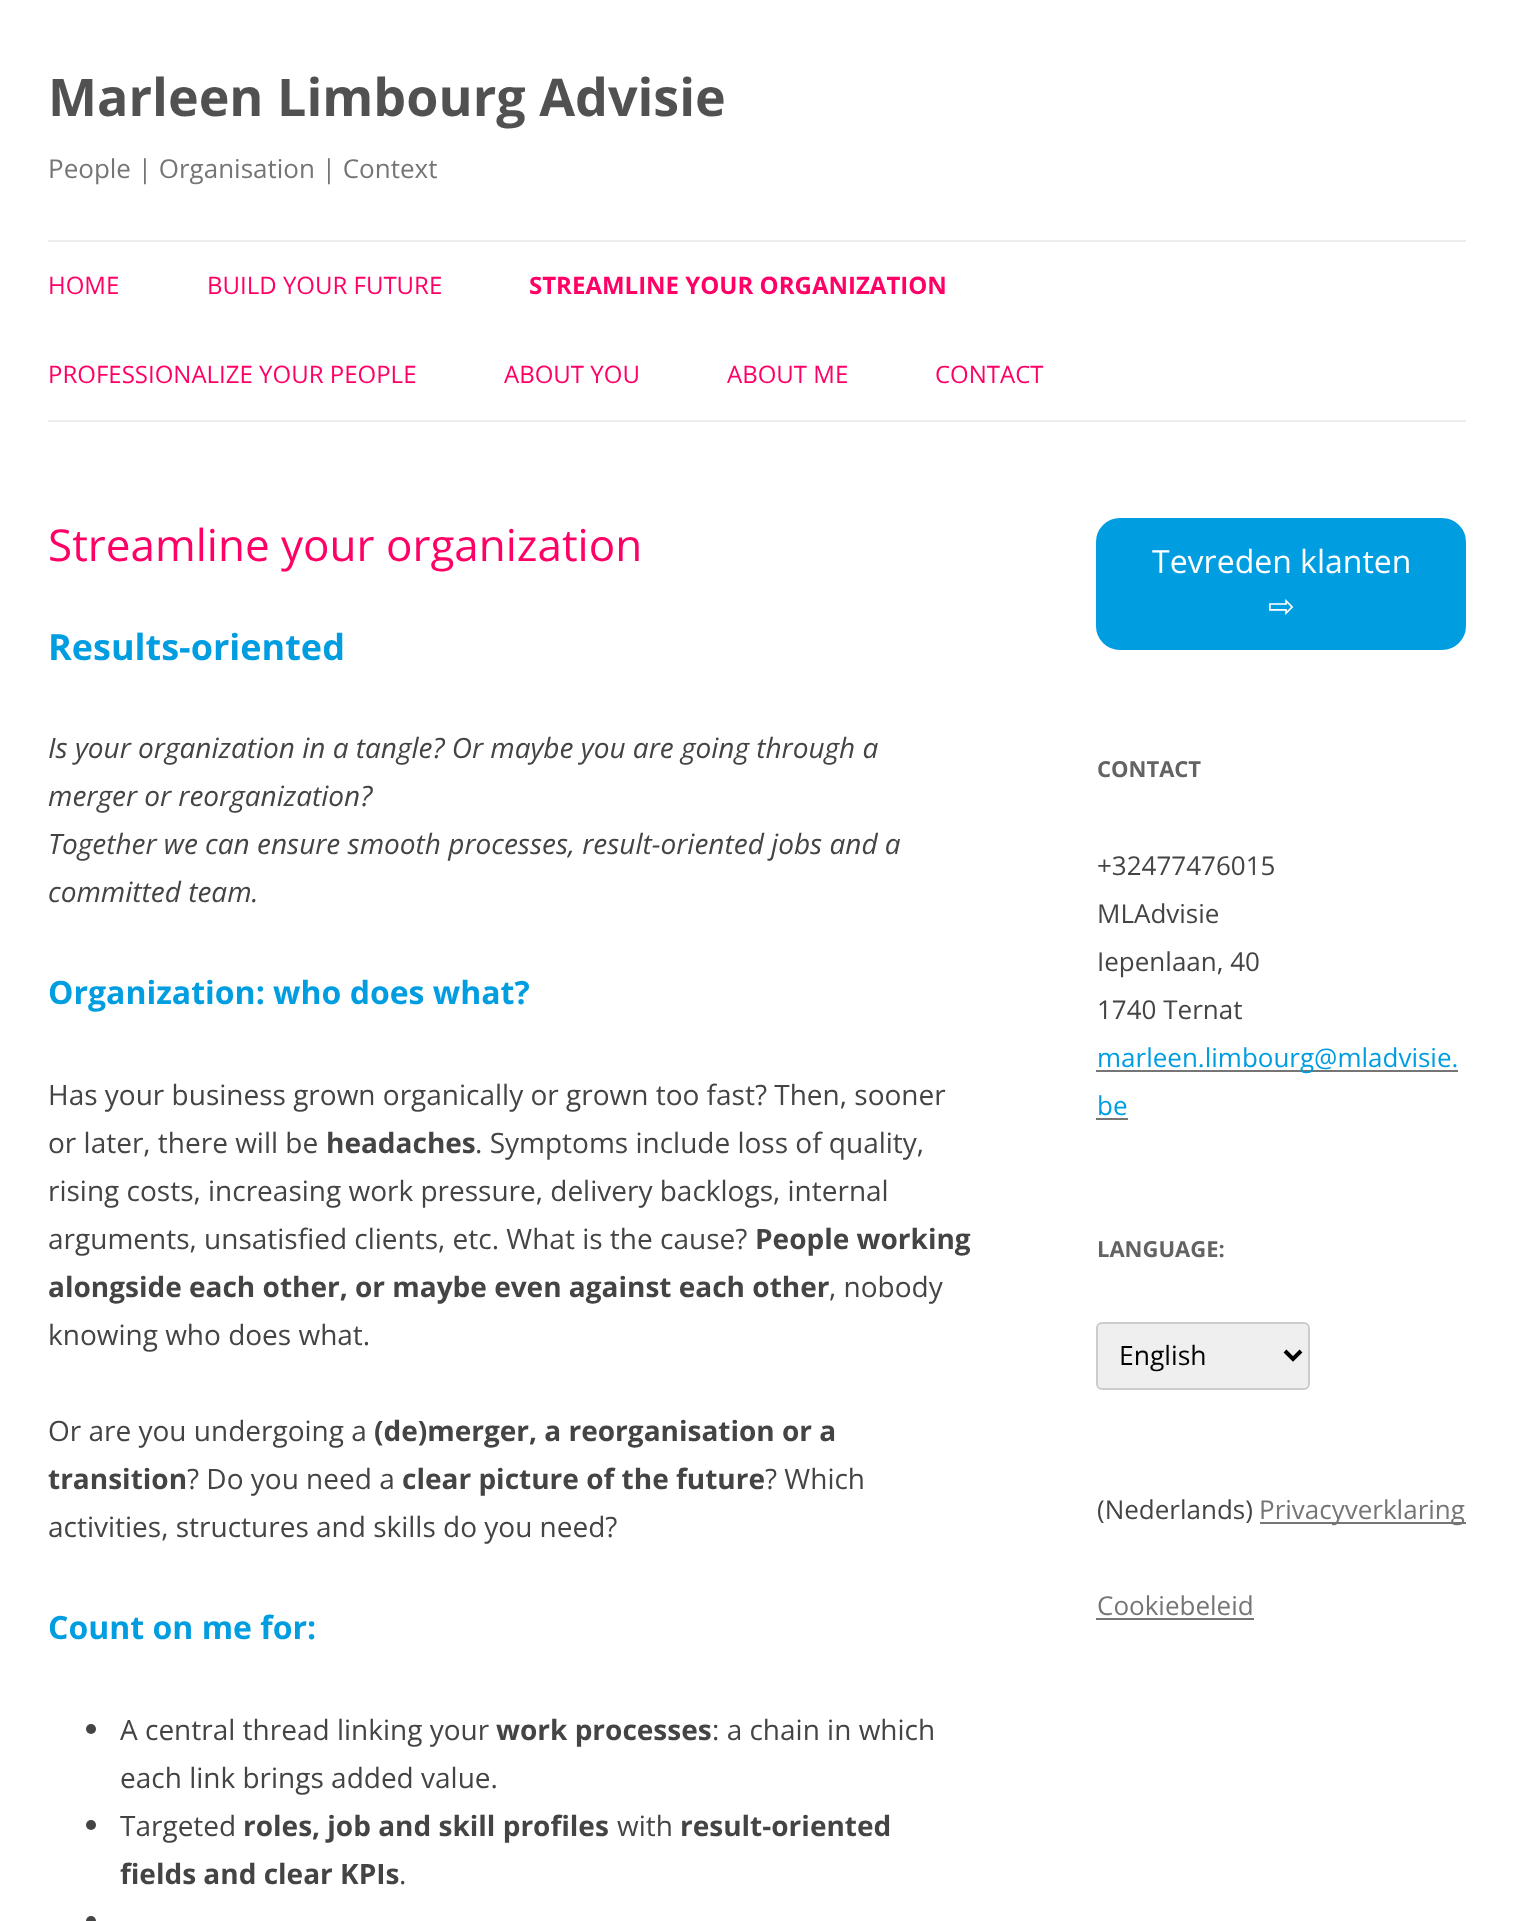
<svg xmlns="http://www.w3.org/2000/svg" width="1513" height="1921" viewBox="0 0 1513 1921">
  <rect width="100%" height="100%" fill="#fff"/>
  <path d="M48 240h1418v2H48z" fill="#ededed"/>
  <path d="M48 420h1418v2H48z" fill="#ededed"/>
  <circle cx="91" cy="1729" r="5" fill="#444"/>
  <circle cx="91" cy="1825" r="5" fill="#444"/>
  <circle cx="91" cy="1921" r="5" fill="#444"/>
  <rect x="1097" y="519" width="368" height="130" rx="23" fill="#009de0" stroke="#009de0" stroke-width="2"/>
  <path d="M1096 1070h362v2H1096z" fill="#757575"/>
  <path d="M1096 1118h32v2H1096z" fill="#757575"/>
  <rect x="1097" y="1323" width="212" height="66" rx="5" fill="#efefef" stroke="#ccc" stroke-width="2"/>
  <path d="M1285 1351L1293 1359L1301 1351" fill="none" stroke="#000" stroke-width="4"/>
  <path d="M1260 1522h206v2H1260z" fill="#757575"/>
  <path d="M1096 1618h158v2H1096z" fill="#757575"/>
  <text x="48" y="116" font-family="Open Sans" font-size="52" font-weight="bold" fill="#515151">Marleen Limbourg Advisie</text>
  <text x="48" y="178" font-family="Open Sans" font-size="26" fill="#757575">People | Organisation | Context</text>
  <g font-family="Open Sans" font-size="24" fill="#f06">
    <text x="48" y="294">HOME</text>
    <text x="207" y="294">BUILD YOUR FUTURE</text>
  </g>
  <text x="529" y="294" font-family="Open Sans" font-size="24" font-weight="bold" fill="#f06">STREAMLINE YOUR ORGANIZATION</text>
  <g font-family="Open Sans" font-size="24" fill="#f06">
    <text x="48" y="383">PROFESSIONALIZE YOUR PEOPLE</text>
    <text x="504" y="383">ABOUT YOU</text>
    <text x="727" y="383">ABOUT ME</text>
    <text x="935" y="383">CONTACT</text>
  </g>
  <text x="48" y="561" font-family="Open Sans" font-size="44" fill="#f06">Streamline your organization</text>
  <text x="48" y="660" font-family="Open Sans" font-size="36" font-weight="bold" fill="#009de0">Results-oriented</text>
  <g font-family="Open Sans" font-size="28" font-style="italic" fill="#444">
    <text x="48" y="758">Is your organization in a tangle? Or maybe you are going through a</text>
    <text x="48" y="806">merger or reorganization?</text>
    <text x="48" y="854">Together we can ensure smooth processes, result-oriented jobs and a</text>
    <text x="48" y="902">committed team.</text>
  </g>
  <text x="48" y="1004" font-family="Open Sans" font-size="32" font-weight="bold" fill="#009de0">Organization: who does what?</text>
  <g font-family="Open Sans" font-size="28" fill="#444">
    <text x="48" y="1105">Has your business grown organically or grown too fast? Then, sooner</text>
    <text x="48" y="1153">or later, there will be</text>
  </g>
  <text x="326" y="1153" font-family="Open Sans" font-size="28" font-weight="bold" fill="#444">headaches</text>
  <g font-family="Open Sans" font-size="28" fill="#444">
    <text x="475" y="1153">. Symptoms include loss of quality,</text>
    <text x="48" y="1201">rising costs, increasing work pressure, delivery backlogs, internal</text>
    <text x="48" y="1249">arguments, unsatisfied clients, etc. What is the cause?</text>
  </g>
  <g font-family="Open Sans" font-size="28" font-weight="bold" fill="#444">
    <text x="755" y="1249">People working</text>
    <text x="48" y="1297">alongside each other, or maybe even against each other</text>
  </g>
  <g font-family="Open Sans" font-size="28" fill="#444">
    <text x="829" y="1297">, nobody</text>
    <text x="48" y="1345">knowing who does what.</text>
    <text x="48" y="1441">Or are you undergoing a</text>
  </g>
  <g font-family="Open Sans" font-size="28" font-weight="bold" fill="#444">
    <text x="374" y="1441">(de)merger, a reorganisation or a</text>
    <text x="48" y="1489">transition</text>
  </g>
  <text x="187" y="1489" font-family="Open Sans" font-size="28" fill="#444">? Do you need a</text>
  <text x="402" y="1489" font-family="Open Sans" font-size="28" font-weight="bold" fill="#444">clear picture of the future</text>
  <g font-family="Open Sans" font-size="28" fill="#444">
    <text x="765" y="1489">? Which</text>
    <text x="48" y="1537">activities, structures and skills do you need?</text>
  </g>
  <text x="48" y="1639" font-family="Open Sans" font-size="32" font-weight="bold" fill="#009de0">Count on me for:</text>
  <text x="120" y="1740" font-family="Open Sans" font-size="28" fill="#444">A central thread linking your</text>
  <text x="496" y="1740" font-family="Open Sans" font-size="28" font-weight="bold" fill="#444">work processes</text>
  <g font-family="Open Sans" font-size="28" fill="#444">
    <text x="712" y="1740">: a chain in which</text>
    <text x="120" y="1788">each link brings added value.</text>
    <text x="120" y="1836">Targeted</text>
  </g>
  <text x="243" y="1836" font-family="Open Sans" font-size="28" font-weight="bold" fill="#444">roles, job and skill profiles</text>
  <text x="617" y="1836" font-family="Open Sans" font-size="28" fill="#444">with</text>
  <g font-family="Open Sans" font-size="28" font-weight="bold" fill="#444">
    <text x="680" y="1836">result-oriented</text>
    <text x="120" y="1884">fields and clear KPIs</text>
  </g>
  <text x="399" y="1884" font-family="Open Sans" font-size="28" fill="#444">.</text>
  <text x="1152" y="573" font-family="Open Sans" font-size="32" fill="#fff">Tevreden klanten</text>
  <text x="1268" y="617" font-family="DejaVu Sans" font-size="32" fill="#fff">⇨</text>
  <text x="1097" y="777" font-family="Open Sans" font-size="22" font-weight="bold" fill="#636363">CONTACT</text>
  <g font-family="Open Sans" font-size="26" fill="#444">
    <text x="1097" y="875">+32477476015</text>
    <text x="1097" y="923">MLAdvisie</text>
    <text x="1097" y="971">Iepenlaan, 40</text>
    <text x="1097" y="1019">1740 Ternat</text>
  </g>
  <g font-family="Open Sans" font-size="26" fill="#009de0">
    <text x="1097" y="1067">marleen.limbourg@mladvisie.</text>
    <text x="1097" y="1115">be</text>
  </g>
  <text x="1097" y="1257" font-family="Open Sans" font-size="22" font-weight="bold" fill="#636363">LANGUAGE:</text>
  <text x="1119" y="1365" font-family="Open Sans" font-size="26.5" fill="#000">English</text>
  <text x="1097" y="1519" font-family="Open Sans" font-size="26" fill="#444">(Nederlands)</text>
  <g font-family="Open Sans" font-size="26" fill="#757575">
    <text x="1259" y="1519">Privacyverklaring</text>
    <text x="1097" y="1615">Cookiebeleid</text>
  </g>
</svg>
